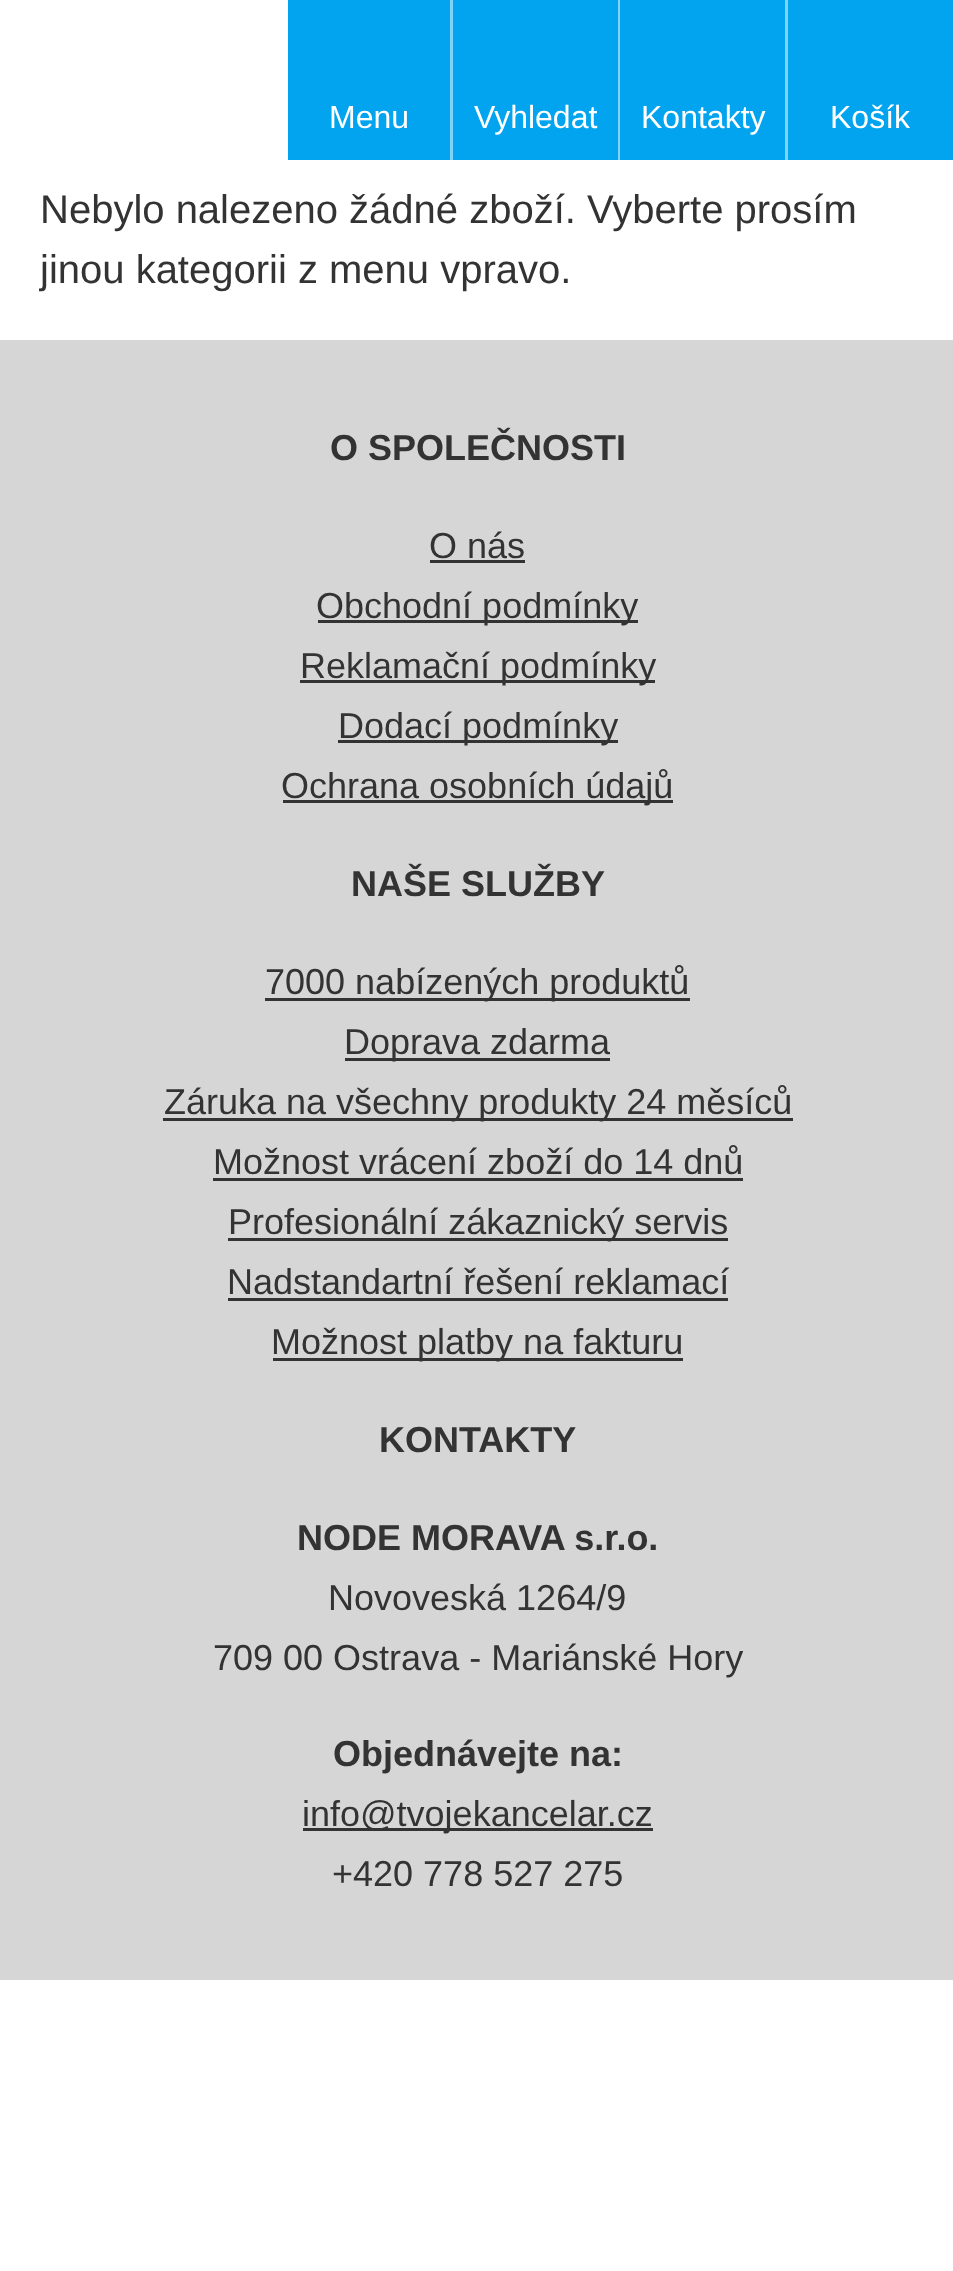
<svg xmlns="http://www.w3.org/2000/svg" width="953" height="2271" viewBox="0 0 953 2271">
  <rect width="100%" height="100%" fill="#fff"/>
  <path d="M288 0h162v160H288z" fill="#02a4ef"/>
  <path d="M450 0h3v160H450z" fill="#81d2f7"/>
  <path d="M453 0h165v160H453z" fill="#02a4ef"/>
  <path d="M618 0h2v160H618z" fill="#81d2f7"/>
  <path d="M620 0h165v160H620z" fill="#02a4ef"/>
  <path d="M785 0h3v160H785z" fill="#81d2f7"/>
  <path d="M788 0h165v160H788z" fill="#02a4ef"/>
  <path d="M0 340h953v1640H0z" fill="#d6d6d6"/>
  <path d="M430 560h95v3H430z" fill="#333"/>
  <path d="M318 620h320v3H318z" fill="#333"/>
  <path d="M300 680h355v3H300z" fill="#333"/>
  <path d="M338 740h280v3H338z" fill="#333"/>
  <path d="M283 800h390v3H283z" fill="#333"/>
  <path d="M265 998h425v3H265z" fill="#333"/>
  <path d="M345 1058h265v3H345z" fill="#333"/>
  <path d="M163 1118h630v3H163z" fill="#333"/>
  <path d="M213 1178h530v3H213z" fill="#333"/>
  <path d="M228 1238h500v3H228z" fill="#333"/>
  <path d="M228 1298h500v3H228z" fill="#333"/>
  <path d="M273 1358h410v3H273z" fill="#333"/>
  <path d="M303 1828h350v3H303z" fill="#333"/>
  <g font-family="Liberation Sans" font-size="32" fill="#fff">
    <text x="329" y="128">Menu</text>
    <text x="474" y="128">Vyhledat</text>
    <text x="641" y="128">Kontakty</text>
    <text x="830" y="128">Košík</text>
  </g>
  <g font-family="Liberation Sans" font-size="40" fill="#333">
    <text x="40" y="223">Nebylo nalezeno žádné zboží. Vyberte prosím</text>
    <text x="40" y="283">jinou kategorii z menu vpravo.</text>
  </g>
  <text x="330" y="460" font-family="Liberation Sans" font-size="36" font-weight="bold" fill="#333">O SPOLEČNOSTI</text>
  <g font-family="Liberation Sans" font-size="36" fill="#333">
    <text x="429" y="558">O nás</text>
    <text x="316" y="618">Obchodní podmínky</text>
    <text x="300" y="678">Reklamační podmínky</text>
    <text x="338" y="738">Dodací podmínky</text>
    <text x="281" y="798">Ochrana osobních údajů</text>
  </g>
  <text x="351" y="896" font-family="Liberation Sans" font-size="36" font-weight="bold" fill="#333">NAŠE SLUŽBY</text>
  <g font-family="Liberation Sans" font-size="36" fill="#333">
    <text x="265" y="994">7000 nabízených produktů</text>
    <text x="344" y="1054">Doprava zdarma</text>
    <text x="164" y="1114">Záruka na všechny produkty 24 měsíců</text>
    <text x="213" y="1174">Možnost vrácení zboží do 14 dnů</text>
    <text x="228" y="1234">Profesionální zákaznický servis</text>
    <text x="227" y="1294">Nadstandartní řešení reklamací</text>
    <text x="271" y="1354">Možnost platby na fakturu</text>
  </g>
  <g font-family="Liberation Sans" font-size="36" font-weight="bold" fill="#333">
    <text x="379" y="1452">KONTAKTY</text>
    <text x="297" y="1550">NODE MORAVA s.r.o.</text>
  </g>
  <g font-family="Liberation Sans" font-size="36" fill="#333">
    <text x="328" y="1610">Novoveská 1264/9</text>
    <text x="213" y="1670">709 00 Ostrava - Mariánské Hory</text>
  </g>
  <text x="333" y="1766" font-family="Liberation Sans" font-size="36" font-weight="bold" fill="#333">Objednávejte na:</text>
  <g font-family="Liberation Sans" font-size="36" fill="#333">
    <text x="302" y="1826">info@tvojekancelar.cz</text>
    <text x="332" y="1886">+420 778 527 275</text>
  </g>
</svg>
